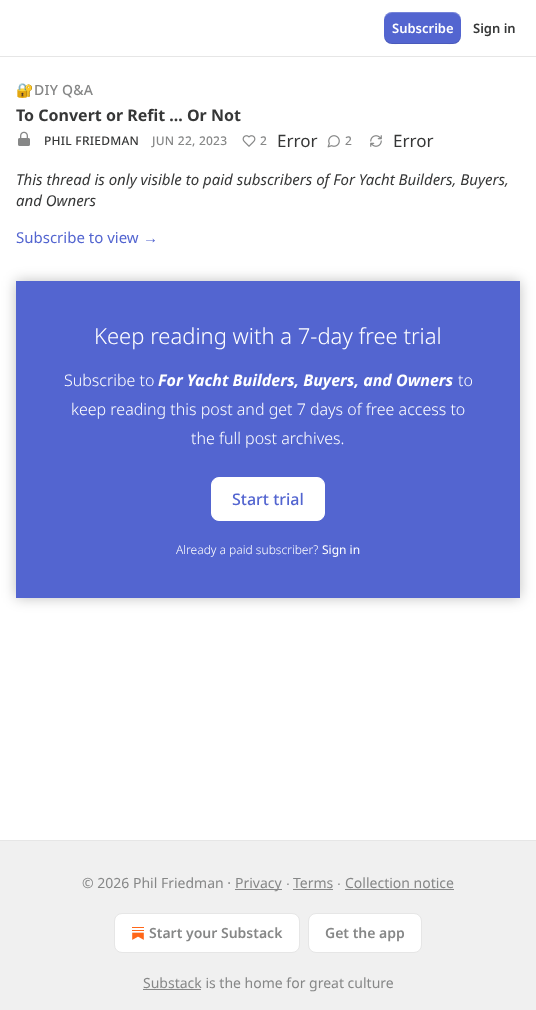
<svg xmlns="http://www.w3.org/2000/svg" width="536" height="1010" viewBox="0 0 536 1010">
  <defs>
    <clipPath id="clip1"><path d="M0 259H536V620H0ZM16 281H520V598H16Z" clip-rule="evenodd"/></clipPath>
  </defs>
  <rect width="100%" height="100%" fill="#fff"/>
  <path d="M0 56h536v1H0z" fill="#e6e6e6"/>
  <rect x="384" y="12" width="77" height="32" rx="8" fill="#5365d0"/>
  <path d="M384 35C384 46 394 44 402 44H443C451 44 461 46 461 35C461 39 457 43 453 43H392C388 43 384 39 384 35Z" fill="#0000001a"/>
  <path d="M392 13H453C457 13 461 17 461 21C461 10 451 12 443 12H402C394 12 384 10 384 21C384 17 388 13 392 13Z" fill="#ffffff33"/>
  <image x="18" y="131" width="12" height="15" href="img/1.png"/>
  <image x="242" y="135" width="14" height="12" href="img/2.png"/>
  <image x="327" y="135" width="13" height="13" href="img/3.png"/>
  <image x="370" y="135" width="12" height="12" href="img/4.png"/>
  <path d="M16 281h504v317H16z" fill="#5365d0"/>
  <rect x="211.5" y="477.5" width="113" height="43" rx="7.5" fill="#fff" stroke="#fff"/>
  <g clip-path="url(#clip1)">
    <path d="M16 281h504v317H16z" fill="#00000040" filter="blur(7px)"/>
  </g>
  <path d="M0 841h536v169H0z" fill="#f0f0f0"/>
  <path d="M0 840h536v1H0z" fill="#e6e6e6"/>
  <path d="M235 889h47v1H235z" fill="#868787"/>
  <path d="M293 889h40v1H293z" fill="#868787"/>
  <path d="M345 889h109v1H345z" fill="#868787"/>
  <rect x="114.5" y="913.5" width="185" height="39" rx="7.5" fill="#fff" stroke="#e6e6e6"/>
  <image x="132" y="927" width="12" height="13" href="img/5.png"/>
  <rect x="308.5" y="913.5" width="113" height="39" rx="7.5" fill="#fff" stroke="#e6e6e6"/>
  <path d="M143 989h58v1H143z" fill="#868787"/>
  <text x="392" y="33" font-family="Noto Sans" font-size="13" font-weight="600" fill="#fff">Subscribe</text>
  <text x="473" y="33" font-family="Noto Sans" font-size="13" font-weight="600" fill="#363737">Sign in</text>
  <text x="16" y="95" font-family="Noto Color Emoji" font-size="14" letter-spacing="0.25" fill="#868787">🔐</text>
  <text x="34" y="95" font-family="Noto Sans" font-size="14" font-weight="500" letter-spacing="0.25" fill="#868787">DIY Q&amp;A</text>
  <text x="16" y="121" font-family="Noto Sans" font-size="16" font-weight="bold" fill="#363737">To Convert or Refit ... Or Not</text>
  <text x="44" y="145" font-family="Noto Sans" font-size="12" font-weight="500" letter-spacing="0.25" fill="#363737">PHIL FRIEDMAN</text>
  <g font-family="Noto Sans" font-size="12" font-weight="500" letter-spacing="0.25" fill="#868787">
    <text x="152" y="145">JUN 22, 2023</text>
    <text x="260" y="145">2</text>
  </g>
  <text x="277" y="147" font-family="Noto Sans" font-size="17" fill="#363737">Error</text>
  <text x="345" y="145" font-family="Noto Sans" font-size="12" font-weight="500" letter-spacing="0.25" fill="#868787">2</text>
  <text x="393" y="147" font-family="Noto Sans" font-size="17" fill="#363737">Error</text>
  <g font-family="Noto Sans" font-size="15" font-style="italic" fill="#363737">
    <text x="16" y="185">This thread is only visible to paid subscribers of For Yacht Builders, Buyers,</text>
    <text x="16" y="206">and Owners</text>
  </g>
  <text x="16" y="243" font-family="Noto Sans" font-size="15" fill="#5365d0">Subscribe to view</text>
  <text x="143" y="243" font-family="Liberation Sans" font-size="15" fill="#5365d0">→</text>
  <text x="94" y="344" font-family="Noto Sans" font-size="22" font-weight="300" fill="#fff">Keep reading with a 7-day free trial</text>
  <text x="64" y="386" font-family="Noto Sans" font-size="16" font-weight="300" fill="#fff">Subscribe to</text>
  <text x="158" y="386" font-family="Noto Sans" font-size="16" font-weight="bold" font-style="italic" fill="#fff">For Yacht Builders, Buyers, and Owners</text>
  <g font-family="Noto Sans" font-size="16" font-weight="300" fill="#fff">
    <text x="458" y="386">to</text>
    <text x="71" y="415">keep reading this post and get 7 days of free access to</text>
    <text x="191" y="444">the full post archives.</text>
  </g>
  <text x="232" y="505" font-family="Noto Sans" font-size="16" font-weight="500" fill="#5365d0">Start trial</text>
  <text x="176" y="554" font-family="Noto Sans" font-size="12" font-weight="300" fill="#fff">Already a paid subscriber?</text>
  <text x="322" y="554" font-family="Noto Sans" font-size="12" fill="#fff">Sign in</text>
  <g font-family="Noto Sans" font-size="14" fill="#868787">
    <text x="82" y="888">© 2026 Phil Friedman ·</text>
    <text x="235" y="888">Privacy</text>
  </g>
  <text x="286" y="888" font-family="Liberation Sans" font-size="14" fill="#868787">∙</text>
  <text x="293" y="888" font-family="Noto Sans" font-size="14" fill="#868787">Terms</text>
  <text x="337" y="888" font-family="Liberation Sans" font-size="14" fill="#868787">∙</text>
  <text x="345" y="888" font-family="Noto Sans" font-size="14" fill="#868787">Collection notice</text>
  <g font-family="Noto Sans" font-size="14" font-weight="600" fill="#868787">
    <text x="149" y="938">Start your Substack</text>
    <text x="325" y="938">Get the app</text>
  </g>
  <text x="143" y="988" font-family="Noto Sans" font-size="14" fill="#868787">Substack is the home for great culture</text>
</svg>
